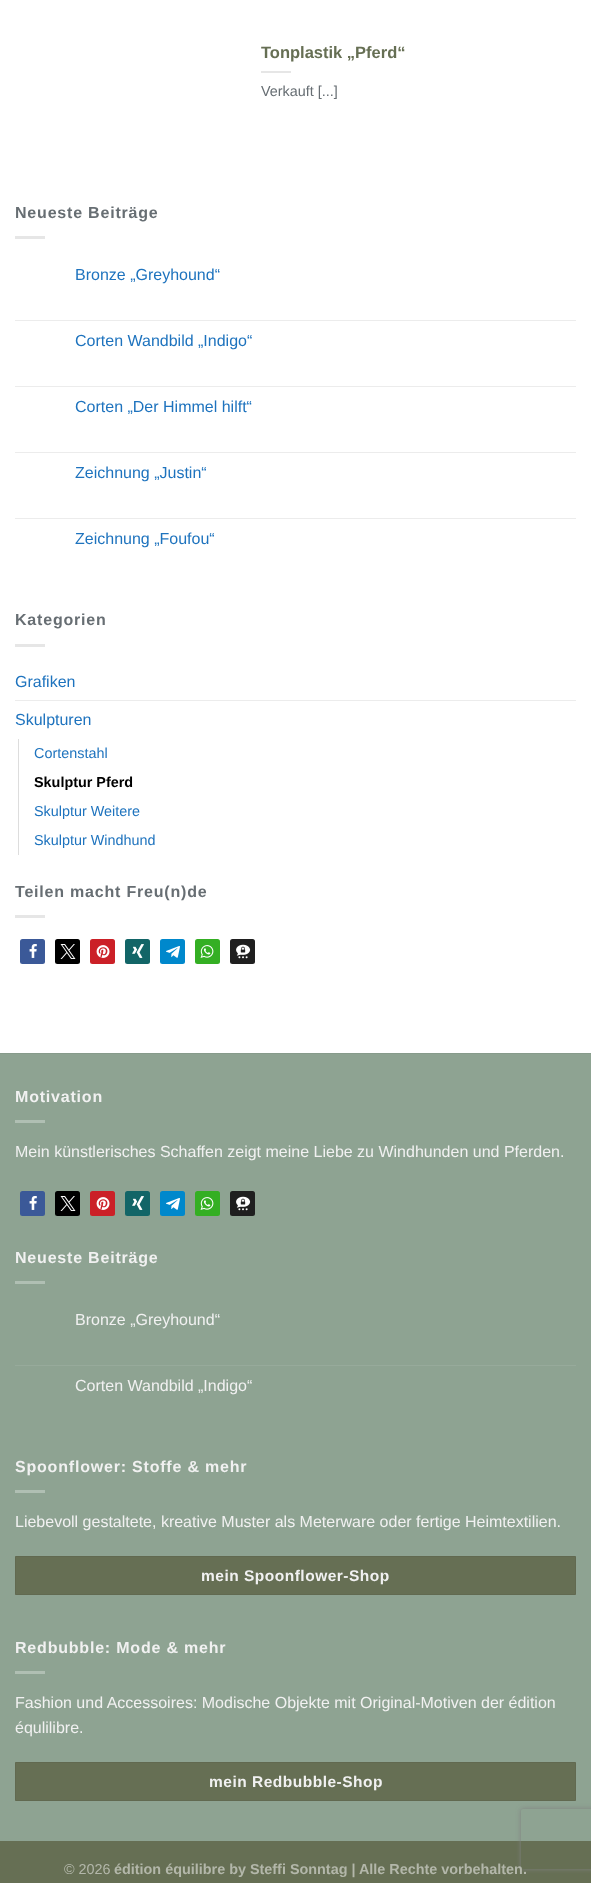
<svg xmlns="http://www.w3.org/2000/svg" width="591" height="1883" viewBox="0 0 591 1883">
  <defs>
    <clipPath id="clip1"><path d="M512 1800H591V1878H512ZM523 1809H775C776 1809 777 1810 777 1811V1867C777 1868 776 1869 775 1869H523C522 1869 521 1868 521 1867V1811C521 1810 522 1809 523 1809Z" clip-rule="evenodd"/></clipPath>
  </defs>
  <rect width="100%" height="100%" fill="#fff"/>
  <path d="M261 71h30v2H261z" fill="#e6e6e6"/>
  <path d="M15 236h30v3H15z" fill="#e6e6e6"/>
  <path d="M15 320h561v1H15z" fill="#ececec"/>
  <path d="M15 386h561v1H15z" fill="#ececec"/>
  <path d="M15 452h561v1H15z" fill="#ececec"/>
  <path d="M15 518h561v1H15z" fill="#ececec"/>
  <path d="M15 644h30v3H15z" fill="#e6e6e6"/>
  <path d="M15 700h561v1H15z" fill="#ececec"/>
  <path d="M18 739h1v116H18z" fill="#ddd"/>
  <path d="M15 915h30v3H15z" fill="#e6e6e6"/>
  <rect x="20" y="939" width="25" height="25" rx="2.5" fill="#3b5998"/>
  <image x="29" y="944" width="8" height="14" href="img/1.png"/>
  <rect x="55" y="939" width="25" height="25" rx="2.5" fill="#000"/>
  <image x="60" y="944" width="16" height="15" href="img/2.png"/>
  <rect x="90" y="939" width="25" height="25" rx="2.5" fill="#cb2027"/>
  <image x="96" y="945" width="14" height="13" href="img/3.png"/>
  <rect x="125" y="939" width="25" height="25" rx="2.5" fill="#126567"/>
  <image x="132" y="944" width="12" height="14" href="img/4.png"/>
  <rect x="160" y="939" width="25" height="25" rx="2.5" fill="#08c"/>
  <image x="166" y="946" width="14" height="12" href="img/5.png"/>
  <rect x="195" y="939" width="25" height="25" rx="2.5" fill="#34af23"/>
  <image x="200" y="945" width="14" height="13" href="img/6.png"/>
  <rect x="230" y="939" width="25" height="25" rx="2.5" fill="#1f1f1f"/>
  <image x="236" y="944" width="15" height="15" href="img/7.png"/>
  <path d="M0 1054h591v787H0z" fill="#8ea392"/>
  <path d="M0 1053h591v1H0z" fill="#879b8b"/>
  <path d="M15 1120h30v3H15z" fill="#b0bfb3"/>
  <rect x="20" y="1191" width="25" height="25" rx="2.5" fill="#3b5998"/>
  <image x="29" y="1196" width="8" height="14" href="img/1.png"/>
  <rect x="55" y="1191" width="25" height="25" rx="2.5" fill="#000"/>
  <image x="60" y="1196" width="16" height="15" href="img/2.png"/>
  <rect x="90" y="1191" width="25" height="25" rx="2.5" fill="#cb2027"/>
  <image x="96" y="1197" width="14" height="13" href="img/3.png"/>
  <rect x="125" y="1191" width="25" height="25" rx="2.5" fill="#126567"/>
  <image x="132" y="1196" width="12" height="14" href="img/4.png"/>
  <rect x="160" y="1191" width="25" height="25" rx="2.5" fill="#08c"/>
  <image x="166" y="1198" width="14" height="12" href="img/5.png"/>
  <rect x="195" y="1191" width="25" height="25" rx="2.5" fill="#34af23"/>
  <image x="200" y="1197" width="14" height="13" href="img/6.png"/>
  <rect x="230" y="1191" width="25" height="25" rx="2.5" fill="#1f1f1f"/>
  <image x="236" y="1196" width="15" height="15" href="img/7.png"/>
  <path d="M15 1281h30v3H15z" fill="#b0bfb3"/>
  <path d="M15 1365h561v1H15z" fill="#97aa9b"/>
  <path d="M15 1490h30v3H15z" fill="#b0bfb3"/>
  <path d="M15.5 1556.5h560v38H15.5z" fill="#666f54" stroke="#616950"/>
  <path d="M15 1671h30v3H15z" fill="#b0bfb3"/>
  <path d="M15.5 1762.5h560v38H15.5z" fill="#666f54" stroke="#616950"/>
  <path d="M0 1841h591v42H0z" fill="#666f54"/>
  <g clip-path="url(#clip1)">
    <rect x="521" y="1809" width="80" height="60" rx="2" fill="#808080" filter="blur(2.5px)"/>
  </g>
  <text x="261" y="58" font-family="Liberation Sans" font-size="16.5" font-weight="bold" fill="#666f54">Tonplastik „Pferd“</text>
  <text x="261" y="96" font-family="Liberation Sans" font-size="14.4" fill="#676e73">Verkauft [...]</text>
  <text x="15" y="218" font-family="Liberation Sans" font-size="16" font-weight="bold" letter-spacing="0.8" fill="#676e73">Neueste Beiträge</text>
  <g font-family="Liberation Sans" font-size="16" fill="#1e73be">
    <text x="75" y="280">Bronze „Greyhound“</text>
    <text x="75" y="346">Corten Wandbild „Indigo“</text>
    <text x="75" y="412">Corten „Der Himmel hilft“</text>
    <text x="75" y="478">Zeichnung „Justin“</text>
    <text x="75" y="544">Zeichnung „Foufou“</text>
  </g>
  <text x="15" y="625" font-family="Liberation Sans" font-size="16" font-weight="bold" letter-spacing="0.8" fill="#676e73">Kategorien</text>
  <g font-family="Liberation Sans" font-size="16" fill="#1e73be">
    <text x="15" y="687">Grafiken</text>
    <text x="15" y="725">Skulpturen</text>
  </g>
  <text x="34" y="758" font-family="Liberation Sans" font-size="14.4" fill="#1e73be">Cortenstahl</text>
  <text x="34" y="787" font-family="Liberation Sans" font-size="14.4" font-weight="bold" fill="#000">Skulptur Pferd</text>
  <g font-family="Liberation Sans" font-size="14.4" fill="#1e73be">
    <text x="34" y="816">Skulptur Weitere</text>
    <text x="34" y="845">Skulptur Windhund</text>
  </g>
  <text x="15" y="897" font-family="Liberation Sans" font-size="16" font-weight="bold" letter-spacing="0.8" fill="#676e73">Teilen macht Freu(n)de</text>
  <text x="15" y="1102" font-family="Liberation Sans" font-size="16" font-weight="bold" letter-spacing="0.8" fill="#f1f1f1">Motivation</text>
  <text x="15" y="1157" font-family="Liberation Sans" font-size="16" fill="#f1f1f1">Mein künstlerisches Schaffen zeigt meine Liebe zu Windhunden und Pferden.</text>
  <text x="15" y="1263" font-family="Liberation Sans" font-size="16" font-weight="bold" letter-spacing="0.8" fill="#f1f1f1">Neueste Beiträge</text>
  <g font-family="Liberation Sans" font-size="16" fill="#f1f1f1">
    <text x="75" y="1325">Bronze „Greyhound“</text>
    <text x="75" y="1391">Corten Wandbild „Indigo“</text>
  </g>
  <text x="15" y="1472" font-family="Liberation Sans" font-size="16" font-weight="bold" letter-spacing="0.8" fill="#f1f1f1">Spoonflower: Stoffe &amp; mehr</text>
  <text x="15" y="1527" font-family="Liberation Sans" font-size="16" fill="#f1f1f1">Liebevoll gestaltete, kreative Muster als Meterware oder fertige Heimtextilien.</text>
  <text x="201" y="1581" font-family="Liberation Sans" font-size="15.5" font-weight="bold" letter-spacing="0.5" fill="#f1f1f1">mein Spoonflower-Shop</text>
  <text x="15" y="1653" font-family="Liberation Sans" font-size="16" font-weight="bold" letter-spacing="0.8" fill="#f1f1f1">Redbubble: Mode &amp; mehr</text>
  <g font-family="Liberation Sans" font-size="16" fill="#f1f1f1">
    <text x="15" y="1708">Fashion und Accessoires: Modische Objekte mit Original-Motiven der édition</text>
    <text x="15" y="1733">équlilibre.</text>
  </g>
  <text x="209" y="1787" font-family="Liberation Sans" font-size="15.5" font-weight="bold" letter-spacing="0.5" fill="#f1f1f1">mein Redbubble-Shop</text>
  <text x="64" y="1874" font-family="Liberation Sans" font-size="14.4" fill="#b3b7aa">© 2026</text>
  <text x="114" y="1874" font-family="Liberation Sans" font-size="14.4" font-weight="bold" fill="#b3b7aa">édition équilibre by Steffi Sonntag | Alle Rechte vorbehalten.</text>
</svg>
